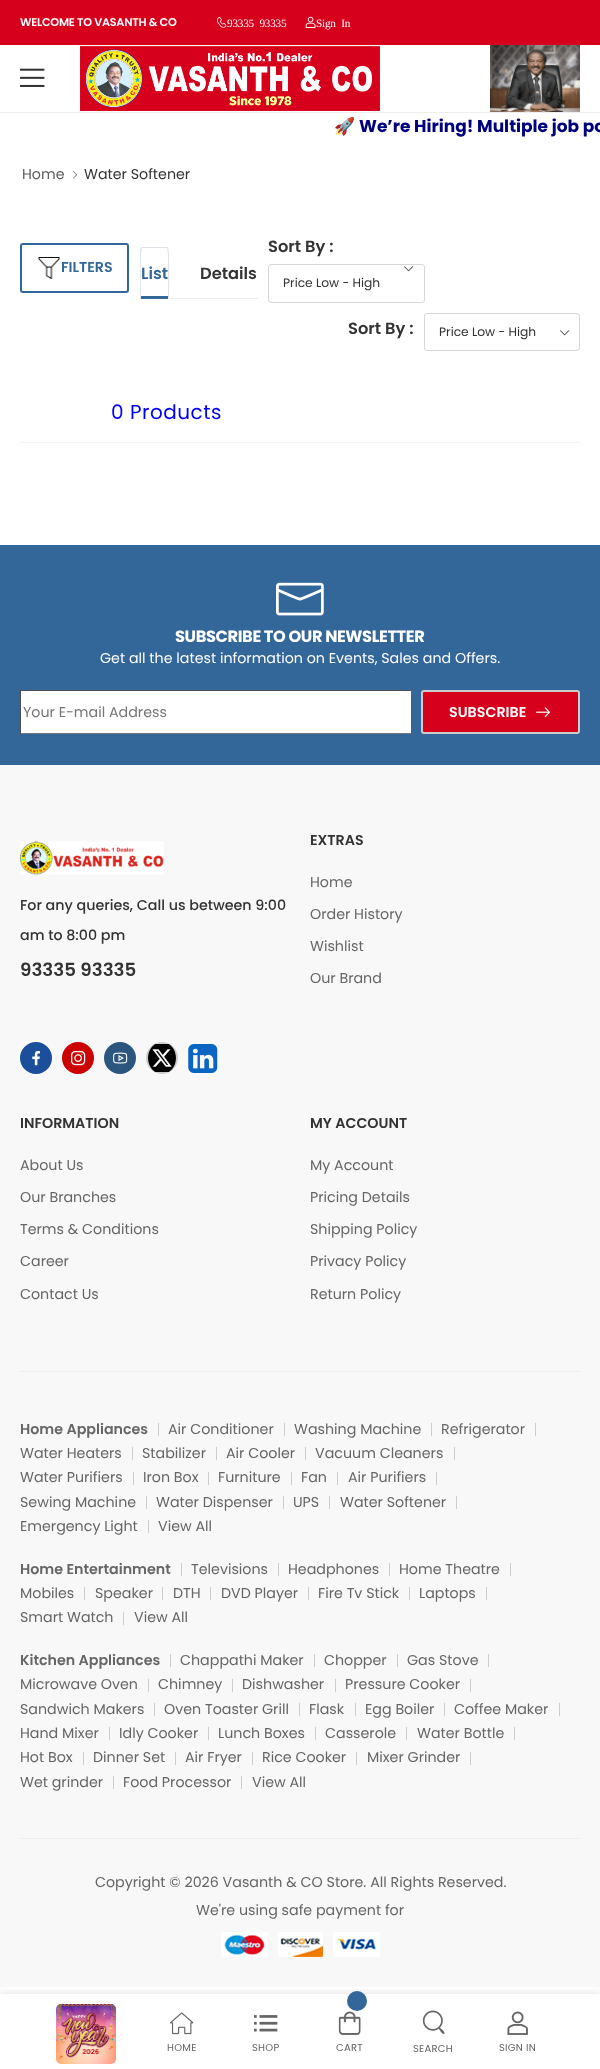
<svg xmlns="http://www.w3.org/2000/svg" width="600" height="2069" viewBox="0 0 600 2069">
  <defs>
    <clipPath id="clip1"><path d="M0 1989h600v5H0z"/></clipPath>
  </defs>
  <rect width="100%" height="100%" fill="#fff"/>
  <path d="M0 0h600v45H0z" fill="#d6001c"/>
  <image x="217" y="16" width="10" height="12" href="img/1.png"/>
  <image x="305" y="16" width="11" height="12" href="img/2.png"/>
  <path d="M0 112h600v1H0z" fill="#eee"/>
  <image x="20" y="68" width="25" height="19" href="img/3.png"/>
  <image x="80" y="46" width="300" height="65" href="img/4.png"/>
  <image x="490" y="45" width="90" height="67" href="img/5.png"/>
  <image x="73" y="171" width="5" height="8" href="img/6.png"/>
  <rect x="21" y="244" width="107" height="48" rx="2" fill="none" stroke="#369" stroke-width="2"/>
  <image x="38" y="257" width="23" height="23" href="img/7.png"/>
  <path d="M169 298h89v1H169z" fill="#eee"/>
  <path d="M143 247C142 247 141 247 141 248L141.5 248.5C142 248 142.5 248 143 248H166C166.5 248 167 248 167.5 248.5L168 248C168 247 167 247 166 247Z" fill="#dee2e6"/>
  <path d="M169 299C169 293 170 250 168 248L167 249C169 250 168 292 168 298Z" fill="#dee2e6"/>
  <path d="M169 299L168 298H141L140 299Z" fill="#fff"/>
  <path d="M140 299L141 298C141 292 140 250 142 249L141 248L140 250Z" fill="#dee2e6"/>
  <path d="M141 296h27v3H141z" fill="#369"/>
  <image x="404" y="266" width="10" height="6" href="img/8.png"/>
  <rect x="268.5" y="264.5" width="156" height="38" rx="2.5" fill="none" stroke="#d7d7d7"/>
  <image x="560" y="330" width="10" height="6" href="img/8.png"/>
  <rect x="424.5" y="313.5" width="155" height="37" rx="2.5" fill="none" stroke="#d7d7d7"/>
  <path d="M20 442h560v1H20z" fill="#f4f4f4"/>
  <path d="M0 765h600v1222H0z" fill="#f8f8f8"/>
  <path d="M0 545h600v220H0z" fill="#369"/>
  <image x="276" y="582" width="48" height="34" href="img/9.png"/>
  <path d="M21 691h390v42H21z" fill="#fff"/>
  <path d="M20 690h391v1H20z" fill="#4f4f4f"/>
  <path d="M20 733h391v1H20z" fill="#767676"/>
  <path d="M20 690h1v44H20z" fill="#4f4f4f"/>
  <rect x="422" y="691" width="157" height="42" rx="2" fill="#d6001c" stroke="#ccc" stroke-width="2"/>
  <image x="536" y="707" width="14" height="11" href="img/10.png"/>
  <path d="M20 1371h560v1H20z" fill="#eee"/>
  <image x="20" y="841" width="144" height="34" href="img/11.png"/>
  <circle cx="36" cy="1058" r="15" fill="#1b4f9b" stroke="#1b4f9b" stroke-width="2"/>
  <image x="32" y="1051" width="8" height="15" href="img/12.png"/>
  <circle cx="78" cy="1058" r="15" fill="#cc0001" stroke="#cc0001" stroke-width="2"/>
  <image x="71" y="1050" width="15" height="16" href="img/13.png"/>
  <circle cx="120" cy="1058" r="15" fill="#2c567e" stroke="#2c567e" stroke-width="2"/>
  <image x="113" y="1052" width="15" height="12" href="img/14.png"/>
  <circle cx="162" cy="1058" r="15" fill="none" stroke="#ccc" stroke-width="2"/>
  <image x="148" y="1044" width="28" height="28" href="img/15.png"/>
  <image x="188" y="1044" width="30" height="29" href="img/16.png"/>
  <path d="M20 1838h560v1H20z" fill="#eee"/>
  <path d="M158 1423h1v13H158z" fill="#ccc"/>
  <path d="M284 1423h1v13H284z" fill="#ccc"/>
  <path d="M431 1423h1v13H431z" fill="#ccc"/>
  <path d="M535 1423h1v13H535z" fill="#ccc"/>
  <path d="M132 1447h1v13H132z" fill="#ccc"/>
  <path d="M216 1447h1v13H216z" fill="#ccc"/>
  <path d="M305 1447h1v13H305z" fill="#ccc"/>
  <path d="M454 1447h1v13H454z" fill="#ccc"/>
  <path d="M133 1472h1v13H133z" fill="#ccc"/>
  <path d="M208 1472h1v13H208z" fill="#ccc"/>
  <path d="M291 1472h1v13H291z" fill="#ccc"/>
  <path d="M337 1472h1v13H337z" fill="#ccc"/>
  <path d="M436 1472h1v13H436z" fill="#ccc"/>
  <path d="M146 1496h1v13H146z" fill="#ccc"/>
  <path d="M283 1496h1v13H283z" fill="#ccc"/>
  <path d="M329 1496h1v13H329z" fill="#ccc"/>
  <path d="M456 1496h1v13H456z" fill="#ccc"/>
  <path d="M148 1520h1v13H148z" fill="#ccc"/>
  <path d="M181 1563h1v13H181z" fill="#ccc"/>
  <path d="M278 1563h1v13H278z" fill="#ccc"/>
  <path d="M389 1563h1v13H389z" fill="#ccc"/>
  <path d="M510 1563h1v13H510z" fill="#ccc"/>
  <path d="M84 1587h1v13H84z" fill="#ccc"/>
  <path d="M162 1587h1v13H162z" fill="#ccc"/>
  <path d="M210 1587h1v13H210z" fill="#ccc"/>
  <path d="M308 1587h1v13H308z" fill="#ccc"/>
  <path d="M409 1587h1v13H409z" fill="#ccc"/>
  <path d="M486 1587h1v13H486z" fill="#ccc"/>
  <path d="M123 1612h1v13H123z" fill="#ccc"/>
  <path d="M170 1654h1v13H170z" fill="#ccc"/>
  <path d="M314 1654h1v13H314z" fill="#ccc"/>
  <path d="M397 1654h1v13H397z" fill="#ccc"/>
  <path d="M488 1654h1v13H488z" fill="#ccc"/>
  <path d="M148 1679h1v13H148z" fill="#ccc"/>
  <path d="M232 1679h1v13H232z" fill="#ccc"/>
  <path d="M335 1679h1v13H335z" fill="#ccc"/>
  <path d="M470 1679h1v13H470z" fill="#ccc"/>
  <path d="M154 1703h1v13H154z" fill="#ccc"/>
  <path d="M299 1703h1v13H299z" fill="#ccc"/>
  <path d="M355 1703h1v13H355z" fill="#ccc"/>
  <path d="M444 1703h1v13H444z" fill="#ccc"/>
  <path d="M559 1703h1v13H559z" fill="#ccc"/>
  <path d="M109 1727h1v13H109z" fill="#ccc"/>
  <path d="M208 1727h1v13H208z" fill="#ccc"/>
  <path d="M315 1727h1v13H315z" fill="#ccc"/>
  <path d="M406 1727h1v13H406z" fill="#ccc"/>
  <path d="M514 1727h1v13H514z" fill="#ccc"/>
  <path d="M83 1752h1v13H83z" fill="#ccc"/>
  <path d="M175 1752h1v13H175z" fill="#ccc"/>
  <path d="M252 1752h1v13H252z" fill="#ccc"/>
  <path d="M356 1752h1v13H356z" fill="#ccc"/>
  <path d="M470 1752h1v13H470z" fill="#ccc"/>
  <path d="M113 1776h1v13H113z" fill="#ccc"/>
  <path d="M241 1776h1v13H241z" fill="#ccc"/>
  <image x="221" y="1932" width="159" height="25" href="img/17.png"/>
  <g clip-path="url(#clip1)">
    <path d="M-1 1993h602v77H-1z" fill="#0000001a" filter="blur(5px)"/>
  </g>
  <image x="56" y="2004" width="60" height="60" href="img/18.png"/>
  <image x="170" y="2012" width="24" height="23" href="img/19.png"/>
  <image x="254" y="2015" width="24" height="17" href="img/20.png"/>
  <circle cx="357" cy="2001" r="10" fill="#369"/>
  <image x="338" y="2011" width="23" height="24" href="img/21.png"/>
  <image x="422" y="2010" width="23" height="24" href="img/22.png"/>
  <image x="507" y="2011" width="21" height="24" href="img/23.png"/>
  <text x="20" y="26" font-family="Poppins" font-size="11.25" font-weight="600" letter-spacing="-0.25" fill="#fff">WELCOME TO VASANTH &amp; CO</text>
  <g font-family="Liberation Serif" font-size="11.25" letter-spacing="-0.25" fill="#fff">
    <text x="227" y="27" word-spacing="3">93335 93335</text>
    <text x="316" y="27" word-spacing="3">Sign In</text>
  </g>
  <text x="334" y="132" font-family="Noto Color Emoji" font-size="17" font-weight="bold" fill="#00007e">🚀</text>
  <text x="359" y="132" font-family="Poppins" font-size="17" font-weight="bold" fill="#00007e">We’re Hiring! Multiple job po</text>
  <text x="22" y="179" font-family="Poppins" font-size="14.25" fill="#5c5c5c">Home</text>
  <text x="84" y="179" font-family="Poppins" font-size="14.25" fill="#333">Water Softener</text>
  <text x="61" y="272" font-family="Poppins" font-size="14.25" font-weight="600" fill="#369">FILTERS</text>
  <text x="141" y="279" font-family="Poppins" font-size="16.25" font-weight="600" fill="#369">List</text>
  <g font-family="Poppins" font-size="16.25" font-weight="600" fill="#333">
    <text x="200" y="279">Details</text>
    <text x="268" y="252">Sort By :</text>
  </g>
  <text x="283" y="287" font-family="Poppins" font-size="12.25" fill="#333">Price Low - High</text>
  <text x="348" y="334" font-family="Poppins" font-size="16.25" font-weight="600" fill="#333">Sort By :</text>
  <text x="439" y="336" font-family="Poppins" font-size="12.25" fill="#333">Price Low - High</text>
  <text x="111" y="419" font-family="Poppins" font-size="20" letter-spacing="0.5" fill="#00f">0 Products</text>
  <text x="175" y="642" font-family="Poppins" font-size="16.25" font-weight="bold" letter-spacing="-0.4" fill="#fff">SUBSCRIBE TO OUR NEWSLETTER</text>
  <text x="100" y="663" font-family="Poppins" font-size="14.25" fill="#fff">Get all the latest information on Events, Sales and Offers.</text>
  <text x="23" y="717" font-family="Poppins" font-size="14.25" fill="#757575">Your E-mail Address</text>
  <text x="449" y="717" font-family="Poppins" font-size="14.25" font-weight="600" fill="#fff">SUBSCRIBE</text>
  <g font-family="Poppins" font-size="14.25" font-weight="500" fill="#333">
    <text x="20" y="910">For any queries, Call us between 9:00</text>
    <text x="20" y="940">am to 8:00 pm</text>
  </g>
  <text x="20" y="976" font-family="Poppins" font-size="18.25" font-weight="600" fill="#333">93335 93335</text>
  <text x="310" y="845" font-family="Poppins" font-size="14.25" font-weight="600" fill="#333">EXTRAS</text>
  <g font-family="Poppins" font-size="14.25" fill="#666">
    <text x="310" y="887">Home</text>
    <text x="310" y="919">Order History</text>
    <text x="310" y="951">Wishlist</text>
    <text x="310" y="983">Our Brand</text>
  </g>
  <text x="20" y="1128" font-family="Poppins" font-size="14.25" font-weight="600" fill="#333">INFORMATION</text>
  <g font-family="Poppins" font-size="14.25" fill="#666">
    <text x="20" y="1170">About Us</text>
    <text x="20" y="1202">Our Branches</text>
    <text x="20" y="1234">Terms &amp; Conditions</text>
    <text x="20" y="1266">Career</text>
    <text x="20" y="1299">Contact Us</text>
  </g>
  <text x="310" y="1128" font-family="Poppins" font-size="14.25" font-weight="600" fill="#333">MY ACCOUNT</text>
  <g font-family="Poppins" font-size="14.25" fill="#666">
    <text x="310" y="1170">My Account</text>
    <text x="310" y="1202">Pricing Details</text>
    <text x="310" y="1234">Shipping Policy</text>
    <text x="310" y="1266">Privacy Policy</text>
    <text x="310" y="1299">Return Policy</text>
  </g>
  <text x="20" y="1434" font-family="Poppins" font-size="14.25" font-weight="600" fill="#666">Home Appliances</text>
  <g font-family="Poppins" font-size="14.25" fill="#666">
    <text x="168" y="1434">Air Conditioner</text>
    <text x="294" y="1434">Washing Machine</text>
    <text x="441" y="1434">Refrigerator</text>
    <text x="20" y="1458">Water Heaters</text>
    <text x="142" y="1458">Stabilizer</text>
    <text x="226" y="1458">Air Cooler</text>
    <text x="315" y="1458">Vacuum Cleaners</text>
    <text x="20" y="1482">Water Purifiers</text>
    <text x="143" y="1482">Iron Box</text>
    <text x="218" y="1482">Furniture</text>
    <text x="301" y="1482">Fan</text>
    <text x="348" y="1482">Air Purifiers</text>
    <text x="20" y="1507">Sewing Machine</text>
    <text x="156" y="1507">Water Dispenser</text>
    <text x="293" y="1507">UPS</text>
    <text x="340" y="1507">Water Softener</text>
    <text x="20" y="1531">Emergency Light</text>
    <text x="158" y="1531">View All</text>
  </g>
  <text x="20" y="1574" font-family="Poppins" font-size="14.25" font-weight="600" fill="#666">Home Entertainment</text>
  <g font-family="Poppins" font-size="14.25" fill="#666">
    <text x="191" y="1574">Televisions</text>
    <text x="288" y="1574">Headphones</text>
    <text x="399" y="1574">Home Theatre</text>
    <text x="20" y="1598">Mobiles</text>
    <text x="95" y="1598">Speaker</text>
    <text x="173" y="1598">DTH</text>
    <text x="221" y="1598">DVD Player</text>
    <text x="318" y="1598">Fire Tv Stick</text>
    <text x="419" y="1598">Laptops</text>
    <text x="20" y="1622">Smart Watch</text>
    <text x="134" y="1622">View All</text>
  </g>
  <text x="20" y="1665" font-family="Poppins" font-size="14.25" font-weight="600" fill="#666">Kitchen Appliances</text>
  <g font-family="Poppins" font-size="14.25" fill="#666">
    <text x="180" y="1665">Chappathi Maker</text>
    <text x="324" y="1665">Chopper</text>
    <text x="407" y="1665">Gas Stove</text>
    <text x="20" y="1689">Microwave Oven</text>
    <text x="158" y="1689">Chimney</text>
    <text x="242" y="1689">Dishwasher</text>
    <text x="345" y="1689">Pressure Cooker</text>
    <text x="20" y="1714">Sandwich Makers</text>
    <text x="164" y="1714">Oven Toaster Grill</text>
    <text x="309" y="1714">Flask</text>
    <text x="365" y="1714">Egg Boiler</text>
    <text x="454" y="1714">Coffee Maker</text>
    <text x="20" y="1738">Hand Mixer</text>
    <text x="119" y="1738">Idly Cooker</text>
    <text x="218" y="1738">Lunch Boxes</text>
    <text x="325" y="1738">Casserole</text>
    <text x="417" y="1738">Water Bottle</text>
    <text x="20" y="1762">Hot Box</text>
    <text x="93" y="1762">Dinner Set</text>
    <text x="185" y="1762">Air Fryer</text>
    <text x="262" y="1762">Rice Cooker</text>
    <text x="367" y="1762">Mixer Grinder</text>
    <text x="20" y="1787">Wet grinder</text>
    <text x="123" y="1787">Food Processor</text>
    <text x="252" y="1787">View All</text>
    <text x="95" y="1887">Copyright © 2026 Vasanth &amp; CO Store. All Rights Reserved.</text>
    <text x="196" y="1915">We're using safe payment for</text>
  </g>
  <g font-family="Poppins" font-size="10" letter-spacing="0.25" fill="#666">
    <text x="167" y="2051">HOME</text>
    <text x="252" y="2051">SHOP</text>
    <text x="336" y="2051">CART</text>
    <text x="413" y="2052">SEARCH</text>
    <text x="499" y="2051">SIGN IN</text>
  </g>
</svg>
